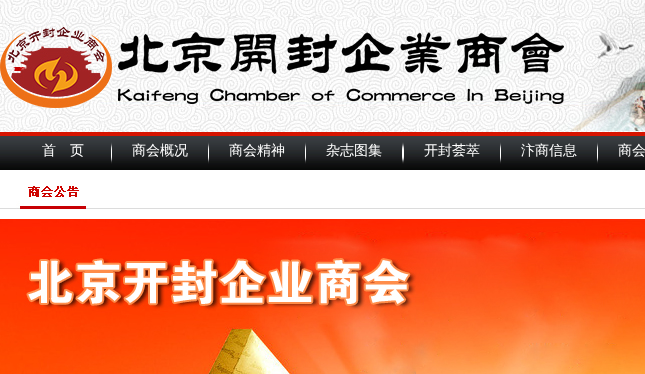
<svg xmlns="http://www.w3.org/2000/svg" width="645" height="374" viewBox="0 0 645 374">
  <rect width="100%" height="100%" fill="#fff"/>
  <image x="0" y="131" width="645" height="1" href="img/1.png"/>
  <image x="0" y="0" width="645" height="131" href="img/2.png"/>
  <image x="0" y="132" width="645" height="38" href="img/3.png"/>
  <image x="111" y="142" width="1" height="22" href="img/4.png"/>
  <image x="208" y="142" width="1" height="22" href="img/4.png"/>
  <image x="305" y="142" width="1" height="22" href="img/4.png"/>
  <image x="402" y="142" width="1" height="22" href="img/4.png"/>
  <image x="403" y="142" width="1" height="22" href="img/4.png"/>
  <image x="500" y="142" width="1" height="22" href="img/4.png"/>
  <image x="597" y="142" width="1" height="22" href="img/4.png"/>
  <image x="0" y="186" width="645" height="23" href="img/5.png"/>
  <image x="0" y="219" width="645" height="155" href="img/6.png"/>
  <g font-family="WenQuanYi Zen Hei" font-size="14" font-weight="500" fill="#fff">
    <text x="42" y="155">首</text>
    <text x="70" y="155">页</text>
    <text x="132" y="155">商会概况</text>
    <text x="229" y="155">商会精神</text>
    <text x="326" y="155">杂志图集</text>
    <text x="424" y="155">开封荟萃</text>
    <text x="521" y="155">汴商信息</text>
    <text x="618" y="155">商会</text>
  </g>
</svg>
